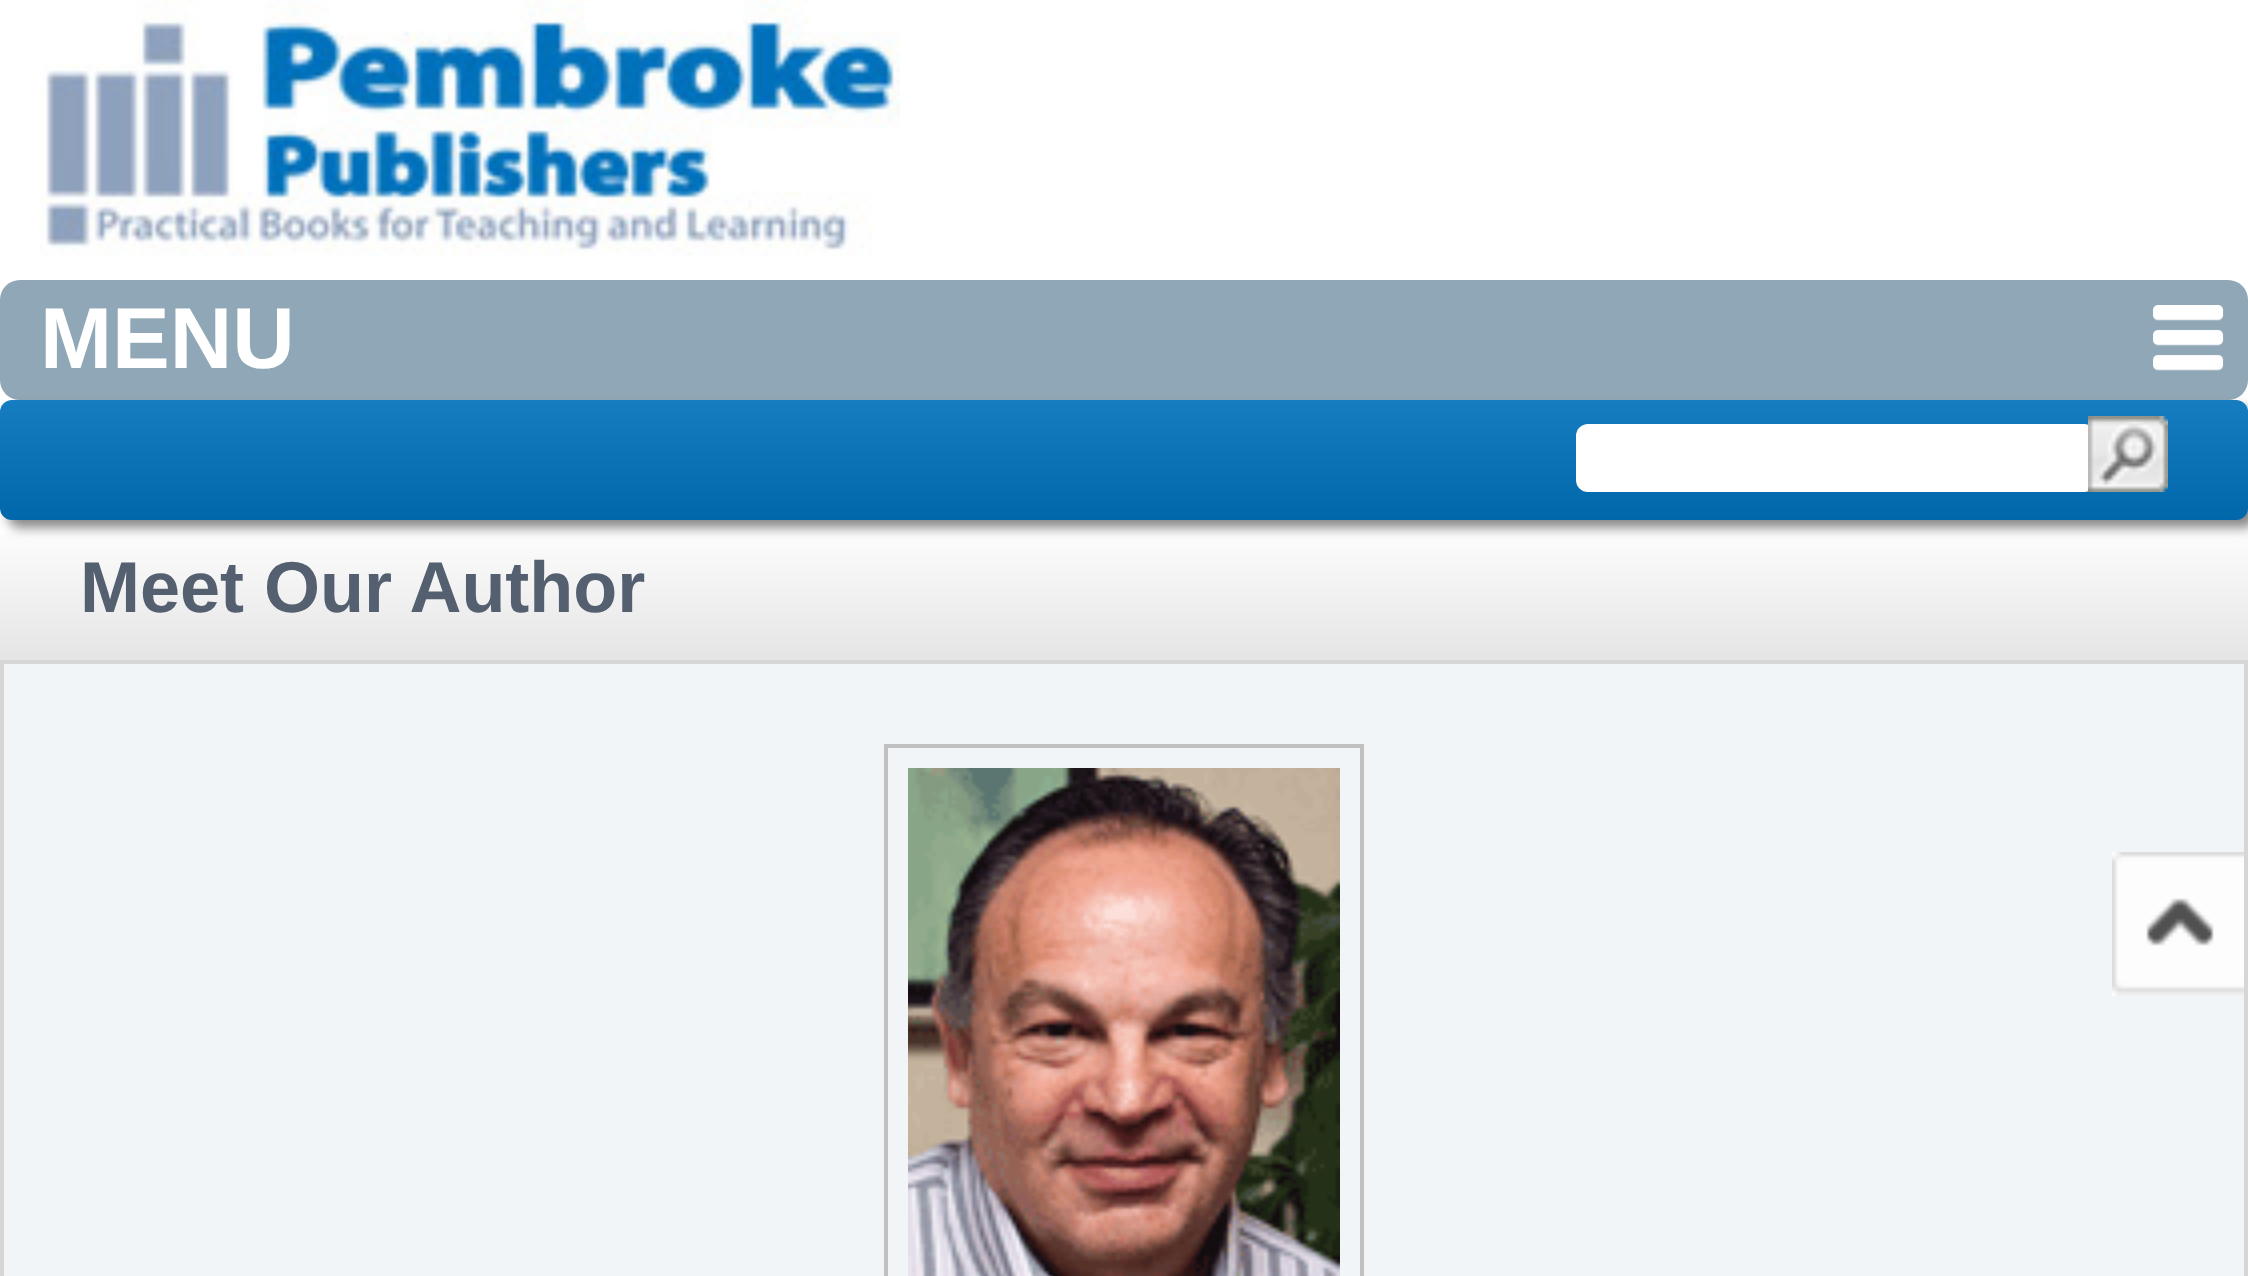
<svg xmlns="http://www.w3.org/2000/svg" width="2248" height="1276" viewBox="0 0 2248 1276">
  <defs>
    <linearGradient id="g1" gradientUnits="userSpaceOnUse" x1="1124" y1="520" x2="1124" y2="660"><stop offset="0" stop-color="#fff"/><stop offset="1" stop-color="#e5e5e5"/></linearGradient>
    <linearGradient id="g2" gradientUnits="userSpaceOnUse" x1="1124" y1="400" x2="1124" y2="520"><stop offset="0" stop-color="#177dc1"/><stop offset="1" stop-color="#0067aa"/></linearGradient>
  </defs>
  <rect width="100%" height="100%" fill="#fff"/>
  <image x="0" y="0" width="2248" height="520" href="img/1.png"/>
  <image x="40" y="0" width="860" height="256" href="img/2.png"/>
  <rect y="280" width="2248" height="120" rx="20" fill="#8fa7b6"/>
  <image x="2153" y="305" width="71" height="66" href="img/3.png"/>
  <path d="M0 533h2248v127H0z" fill="url(#g1)"/>
  <rect x="8" y="408" width="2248" height="120" rx="12" fill="#888" filter="blur(6px)"/>
  <rect y="400" width="2248" height="120" rx="12" fill="url(#g2)"/>
  <rect x="1576" y="424" width="520" height="68" rx="12" fill="#fff"/>
  <image x="2088" y="416" width="80" height="76" href="img/4.png"/>
  <path d="M2 662h2244v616H2z" fill="none" stroke="#d6d6d6" stroke-width="4"/>
  <path d="M4 664h2240v612H4z" fill="#f1f5f8"/>
  <path d="M886 746h476v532H886z" fill="none" stroke="#c0c0c0" stroke-width="4"/>
  <image x="908" y="768" width="432" height="508" href="img/5.png"/>
  <image x="2112" y="852" width="132" height="144" href="img/6.png"/>
  <text x="40" y="368" font-family="Liberation Sans" font-size="86.5" font-weight="bold" fill="#fff">MENU</text>
  <text x="80" y="612" font-family="Liberation Sans" font-size="72" font-weight="bold" fill="#545f70">Meet Our Author</text>
</svg>
